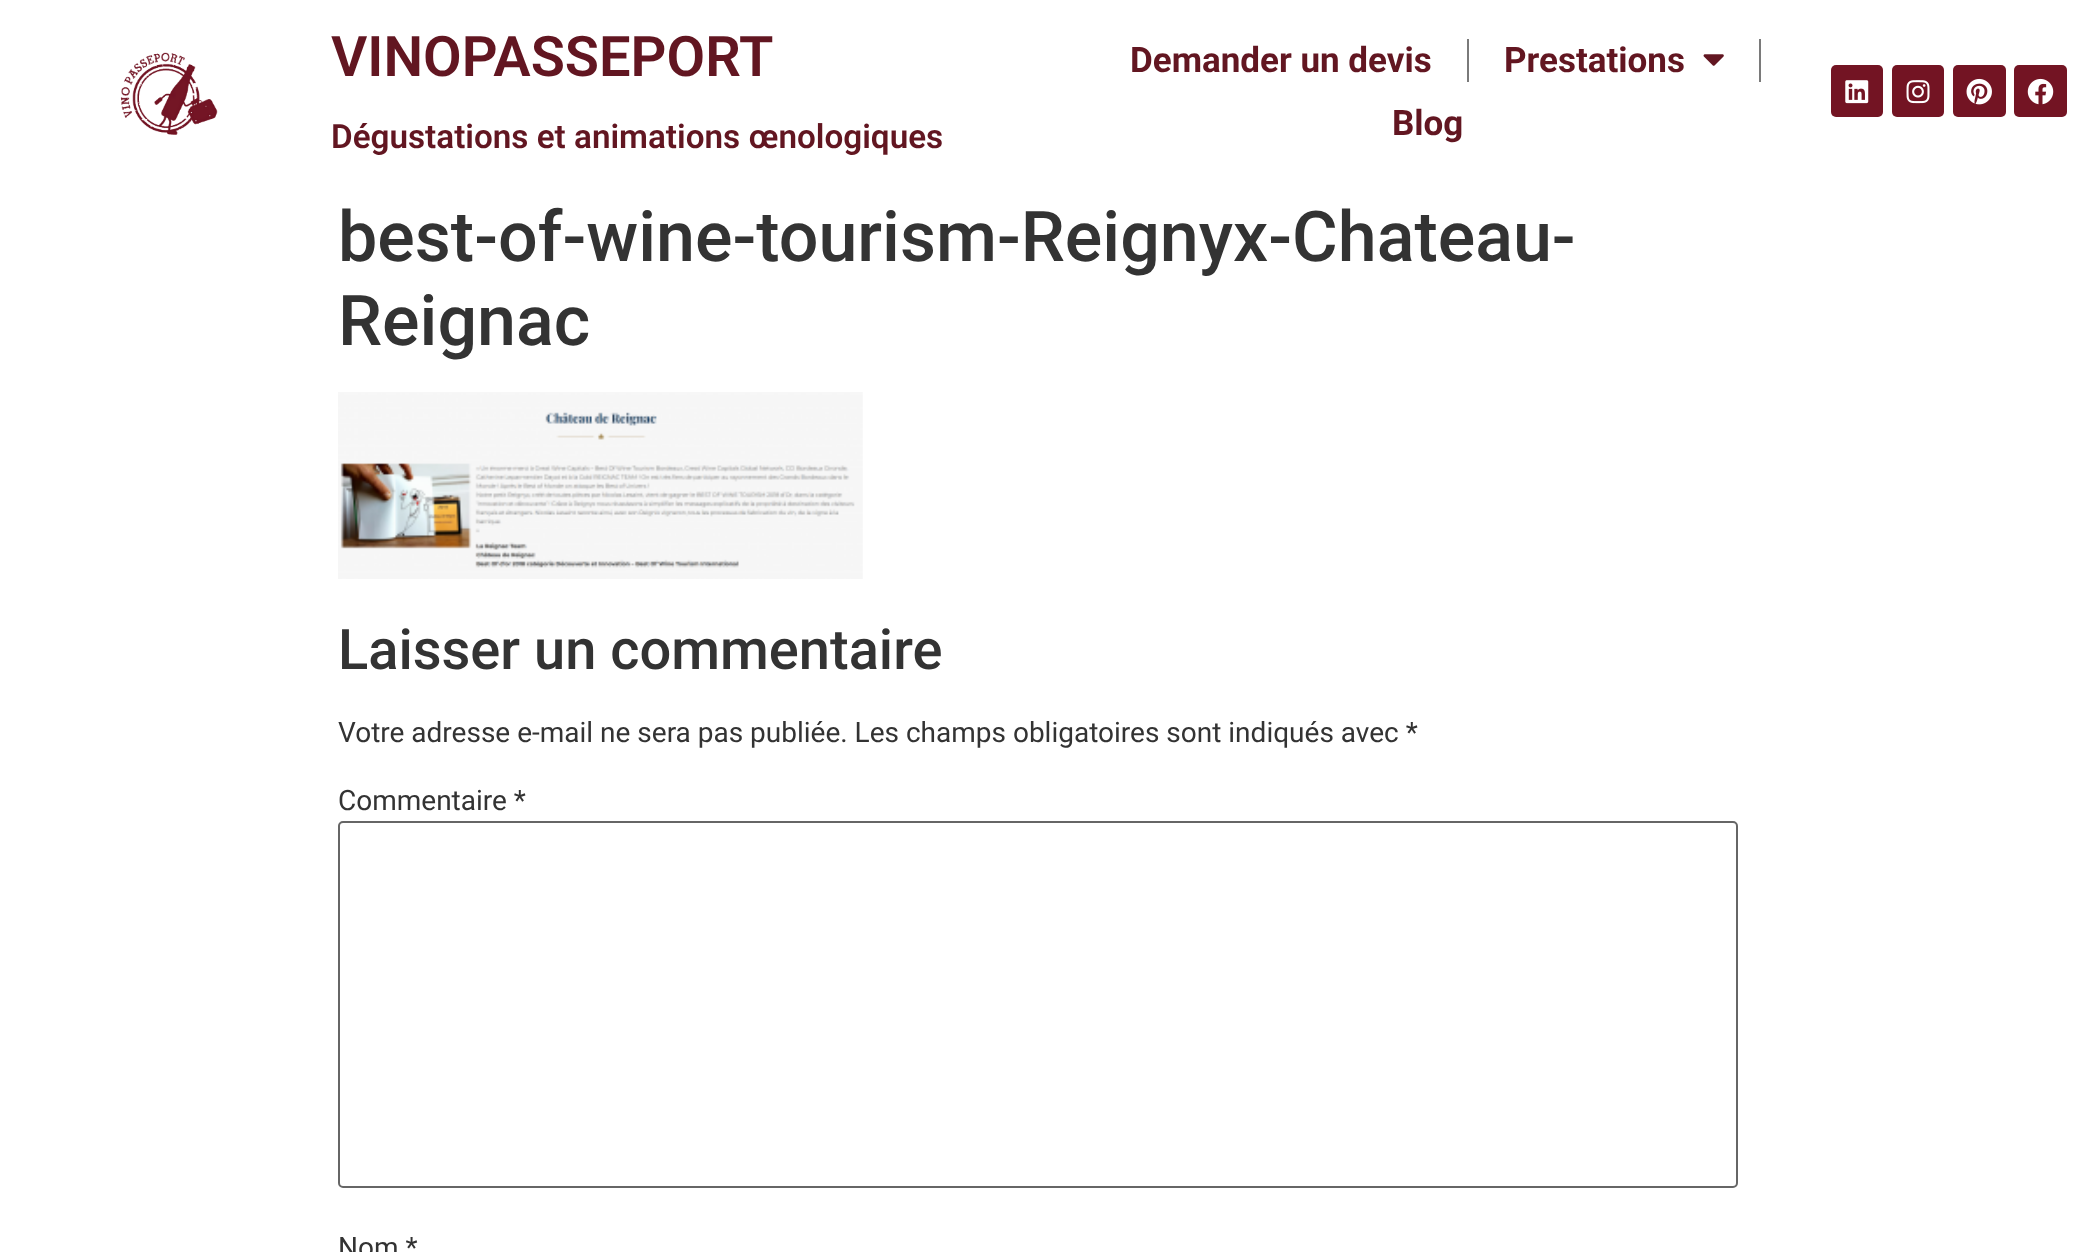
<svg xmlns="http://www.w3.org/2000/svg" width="2074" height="1252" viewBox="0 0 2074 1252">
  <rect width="100%" height="100%" fill="#fff"/>
  <image x="120" y="52" width="98" height="83" href="img/1.png"/>
  <path d="M1467 39h2v43H1467z" fill="#7a7a7a"/>
  <image x="1703" y="54" width="21" height="12" href="img/2.png"/>
  <path d="M1759 39h2v43H1759z" fill="#7a7a7a"/>
  <rect x="1831" y="65" width="52" height="52" rx="5" fill="#731423"/>
  <image x="1845" y="80" width="24" height="24" href="img/3.png"/>
  <rect x="1892" y="65" width="52" height="52" rx="5" fill="#731423"/>
  <image x="1906" y="80" width="24" height="24" href="img/4.png"/>
  <rect x="1953" y="65" width="53" height="52" rx="5" fill="#731423"/>
  <image x="1966" y="78" width="26" height="27" href="img/5.png"/>
  <rect x="2014" y="65" width="53" height="52" rx="5" fill="#731423"/>
  <image x="2027" y="78" width="27" height="27" href="img/6.png"/>
  <image x="338" y="392" width="525" height="187" href="img/7.png"/>
  <rect x="339" y="822" width="1398" height="365" rx="4" fill="none" stroke="#666" stroke-width="2"/>
  <text x="331" y="76" font-family="Roboto" font-size="56" font-weight="600" fill="#621621">VINOPASSEPORT</text>
  <text x="331" y="148" font-family="Roboto" font-size="33.25" font-weight="600" fill="#621621">Dégustations et animations œnologiques</text>
  <g font-family="Roboto" font-size="35" font-weight="bold" fill="#621621">
    <text x="1130" y="72">Demander un devis</text>
    <text x="1504" y="72">Prestations</text>
    <text x="1392" y="135">Blog</text>
  </g>
  <g font-family="Roboto" font-size="70" font-weight="500" fill="#333">
    <text x="338" y="261">best-of-wine-tourism-Reignyx-Chateau-</text>
    <text x="338" y="345">Reignac</text>
  </g>
  <text x="338" y="669" font-family="Roboto" font-size="56" font-weight="500" fill="#333">Laisser un commentaire</text>
  <g font-family="Roboto" font-size="28" fill="#333">
    <text x="338" y="742">Votre adresse e-mail ne sera pas publiée. Les champs obligatoires sont indiqués avec *</text>
    <text x="338" y="810">Commentaire *</text>
    <text x="338" y="1257">Nom *</text>
  </g>
</svg>
